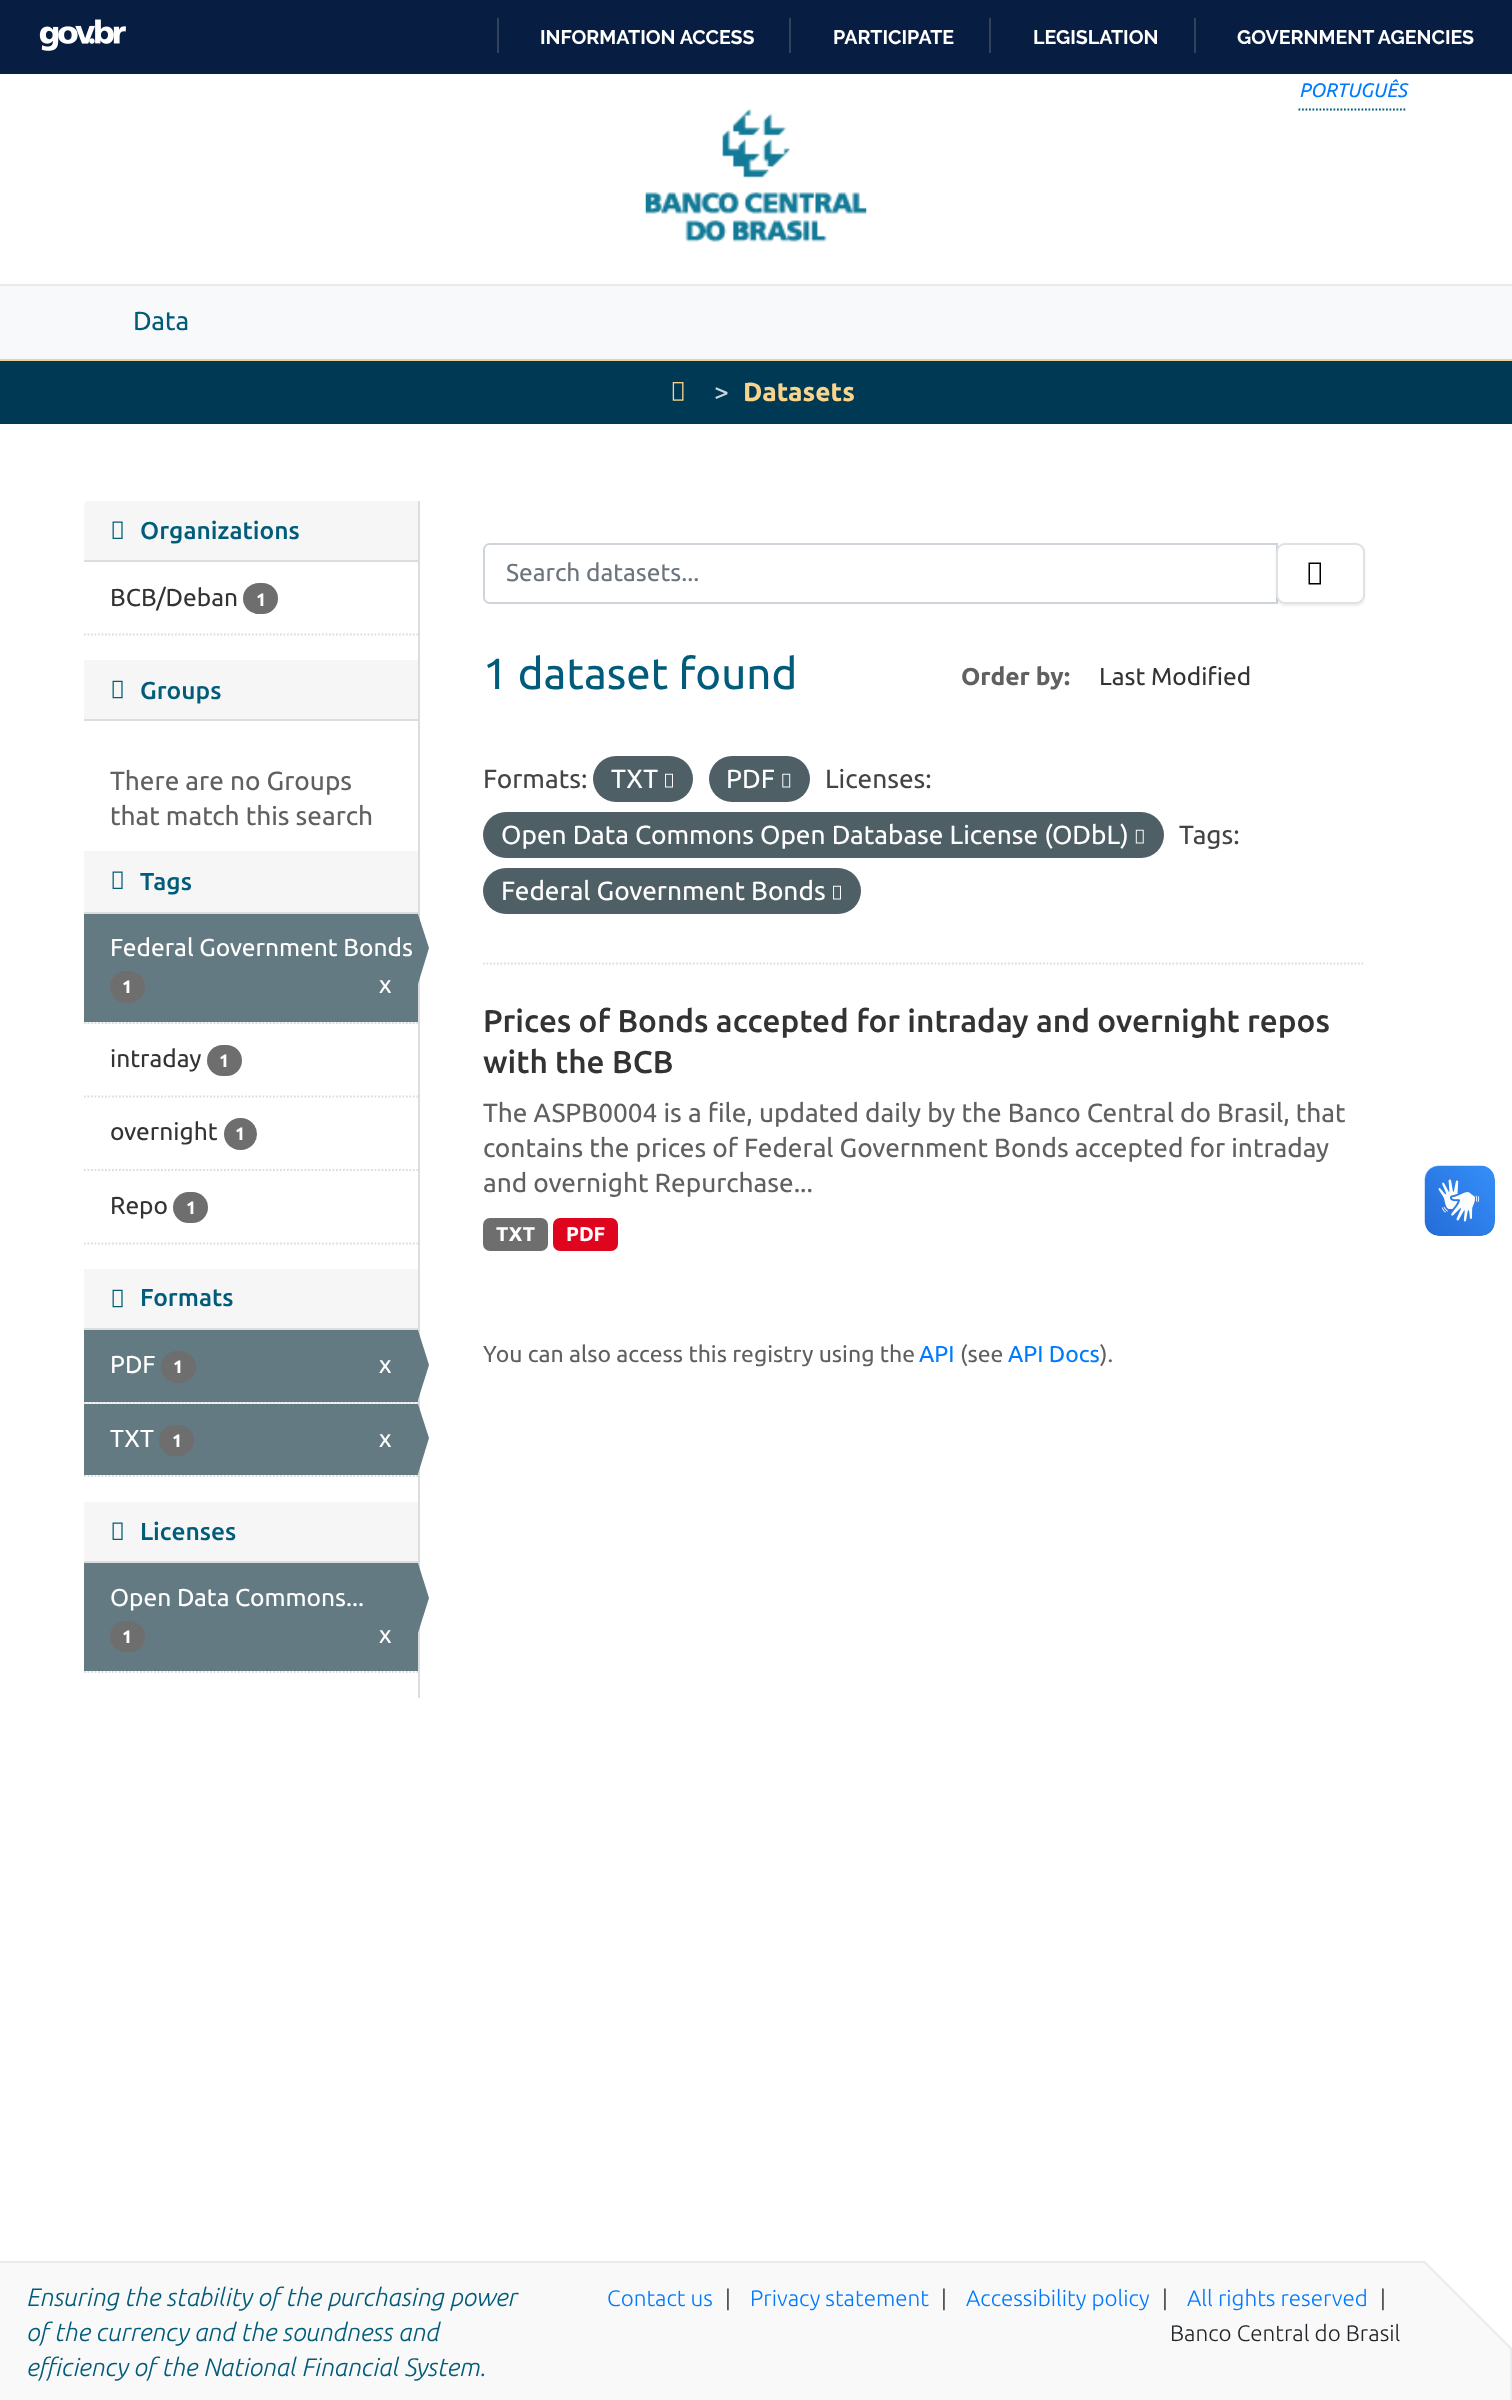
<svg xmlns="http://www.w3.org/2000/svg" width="1512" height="2400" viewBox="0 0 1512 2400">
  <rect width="100%" height="100%" fill="#fff"/>
  <path d="M0 0h1512v74H0z" fill="#071d41"/>
  <image x="39" y="19" width="87" height="32" href="img/1.png"/>
  <path d="M497 18h2v35H497z" fill="#32425b"/>
  <path d="M789 18h2v35H789z" fill="#32425b"/>
  <path d="M989 18h2v35H989z" fill="#32425b"/>
  <path d="M1194 18h2v35H1194z" fill="#32425b"/>
  <path d="M1298.5 109.5H1407" fill="none" stroke="#025c75" stroke-width="1.8" stroke-dasharray="1.75 1.75"/>
  <image x="645" y="108" width="222" height="134" href="img/2.png"/>
  <path d="M0 286h1512v73H0z" fill="#f8f9fa"/>
  <path d="M0 284h1512v2H0z" fill="#eaeaea"/>
  <path d="M0 359h1512v2H0z" fill="#edd297"/>
  <path d="M0 361h1512v63H0z" fill="#003954"/>
  <image x="672" y="382" width="12" height="19" href="img/3.png"/>
  <path d="M89 501H418V562H84V506C84 503 86 501 89 501Z" fill="#f6f6f6"/>
  <path d="M84 560h334v2H84z" fill="#ddd"/>
  <image x="112" y="521" width="11" height="18" href="img/4.png"/>
  <rect x="243" y="583" width="35" height="31" rx="15.5" fill="#6e6e6e"/>
  <path d="M84 634.5H418" fill="none" stroke="#ddd" stroke-width="1.8" stroke-dasharray="1.75 1.75"/>
  <path d="M84 660h334v59H84z" fill="#f6f6f6"/>
  <path d="M84 719h334v2H84z" fill="#ddd"/>
  <image x="112" y="680" width="11" height="19" href="img/5.png"/>
  <path d="M84 851h334v61H84z" fill="#f6f6f6"/>
  <path d="M84 912h334v2H84z" fill="#ddd"/>
  <image x="112" y="871" width="11" height="18" href="img/4.png"/>
  <path d="M84 1022h334v2H84z" fill="#f6f6f6"/>
  <path d="M84 1023H418" fill="none" stroke="#ddd" stroke-width="1.8" stroke-dasharray="1.75 1.75"/>
  <path d="M84 914h334v108H84z" fill="#647a82"/>
  <path d="M418 501h2v1197H418z" fill="#ddd"/>
  <path d="M418 984V914L429 948Z" fill="#647a82"/>
  <rect x="110" y="971" width="35" height="32" rx="16" fill="#6e6e6e"/>
  <path d="M84 1096.5H418" fill="none" stroke="#ddd" stroke-width="1.8" stroke-dasharray="1.75 1.75"/>
  <rect x="207" y="1045" width="35" height="31" rx="15.5" fill="#6e6e6e"/>
  <path d="M84 1170H418" fill="none" stroke="#ddd" stroke-width="1.8" stroke-dasharray="1.75 1.75"/>
  <rect x="224" y="1118" width="33" height="32" rx="16" fill="#6e6e6e"/>
  <rect x="173" y="1192" width="35" height="31" rx="15.5" fill="#6e6e6e"/>
  <path d="M84 1243.5H418" fill="none" stroke="#ddd" stroke-width="1.8" stroke-dasharray="1.75 1.75"/>
  <path d="M84 1269h334v59H84z" fill="#f6f6f6"/>
  <path d="M84 1328h334v2H84z" fill="#ddd"/>
  <image x="112" y="1289" width="11" height="19" href="img/5.png"/>
  <path d="M84 1402h334v2H84z" fill="#f6f6f6"/>
  <path d="M84 1402.5H418" fill="none" stroke="#ddd" stroke-width="1.8" stroke-dasharray="1.75 1.75"/>
  <path d="M84 1330h334v72H84z" fill="#647a82"/>
  <rect x="161" y="1351" width="35" height="32" rx="16" fill="#6e6e6e"/>
  <path d="M418 1400V1330L429 1365Z" fill="#647a82"/>
  <path d="M84 1404h334v71H84z" fill="#647a82"/>
  <rect x="159" y="1425" width="35" height="31" rx="15.5" fill="#6e6e6e"/>
  <path d="M418 1474V1404L429 1438Z" fill="#647a82"/>
  <path d="M84 1476H418" fill="none" stroke="#ddd" stroke-width="1.8" stroke-dasharray="1.75 1.75"/>
  <path d="M84 1502h334v59H84z" fill="#f6f6f6"/>
  <path d="M84 1561h334v2H84z" fill="#ddd"/>
  <image x="112" y="1522" width="11" height="18" href="img/4.png"/>
  <path d="M84 1563h334v108H84z" fill="#647a82"/>
  <path d="M418 1633V1563L429 1598Z" fill="#647a82"/>
  <rect x="110" y="1621" width="35" height="31" rx="15.5" fill="#6e6e6e"/>
  <path d="M84 1672H418" fill="none" stroke="#ddd" stroke-width="1.8" stroke-dasharray="1.75 1.75"/>
  <path d="M483 963.5H1365" fill="none" stroke="#ddd" stroke-width="1.8" stroke-dasharray="1.75 1.75"/>
  <path d="M490 544H1277V603H490C486.5 603 484 600.5 484 597V550C484 546.5 486.5 544 490 544Z" fill="none" stroke="#ced4da" stroke-width="2"/>
  <rect x="1276" y="544" width="89" height="62" rx="9" fill="#00000012" filter="blur(1px)"/>
  <rect x="1277" y="544" width="87" height="59" rx="8" fill="#fff" stroke="#dee2e6" stroke-width="2"/>
  <path d="M1308.5 584.5V562.5H1321V584.5ZM1310 583H1319.5V564H1310Z" fill="#000"/>
  <rect x="593" y="756" width="100" height="46" rx="23" fill="#4e5f65"/>
  <image x="665" y="773" width="8" height="15" href="img/6.png"/>
  <rect x="709" y="756" width="101" height="46" rx="23" fill="#4e5f65"/>
  <image x="782" y="773" width="9" height="15" href="img/7.png"/>
  <rect x="483" y="812" width="681" height="46" rx="23" fill="#4e5f65"/>
  <image x="1135" y="829" width="9" height="15" href="img/8.png"/>
  <rect x="483" y="868" width="378" height="46" rx="23" fill="#4e5f65"/>
  <image x="833" y="885" width="8" height="15" href="img/6.png"/>
  <rect x="483" y="1218" width="65" height="33" rx="7" fill="#6e6e6e"/>
  <rect x="553" y="1218" width="65" height="33" rx="7" fill="#e0051e"/>
  <image x="1424" y="1165" width="71" height="71" href="img/9.png"/>
  <image x="1425" y="1166" width="70" height="70" href="img/10.png"/>
  <path d="M0 2263h1510v137H0z" fill="#f9f9f9"/>
  <path d="M0 2261h1425v2H0z" fill="#e9ecef"/>
  <path d="M1510 2346h2v54H1510z" fill="#e9ecef"/>
  <path d="M1424 2261H1512V2348Z" fill="#fff"/>
  <path d="M1423 2262L1425 2261L1511 2347L1510 2349Z" fill="#e9ecef"/>
  <g font-family="Raleway" font-size="19.6" font-weight="bold" fill="#fff">
    <text x="540" y="44">INFORMATION ACCESS</text>
    <text x="833" y="44">PARTICIPATE</text>
    <text x="1033" y="44">LEGISLATION</text>
    <text x="1237" y="44">GOVERNMENT AGENCIES</text>
  </g>
  <text x="1299" y="97" font-family="Ubuntu" font-size="19.6" font-style="italic" fill="#007bff">PORTUGUÊS</text>
  <text x="133" y="330" font-family="Ubuntu" font-size="26.25" fill="#005c7a">Data</text>
  <text x="714" y="401" font-family="Ubuntu" font-size="26.25" fill="#ccd7dd">&gt;</text>
  <text x="743" y="401" font-family="Ubuntu" font-size="26.25" font-weight="bold" fill="#f8d48d">Datasets</text>
  <text x="140" y="539" font-family="Ubuntu" font-size="24.5" font-weight="500" fill="#005c7a">Organizations</text>
  <text x="110" y="606" font-family="Ubuntu" font-size="24.5" fill="#333">BCB/Deban</text>
  <text x="256" y="606" font-family="Ubuntu" font-size="18" font-weight="bold" fill="#fff">1</text>
  <text x="140" y="699" font-family="Ubuntu" font-size="24.5" font-weight="500" fill="#005c7a">Groups</text>
  <g font-family="Ubuntu" font-size="26.25" fill="#606060">
    <text x="110" y="790">There are no Groups</text>
    <text x="110" y="825">that match this search</text>
  </g>
  <text x="140" y="890" font-family="Ubuntu" font-size="24.5" font-weight="500" fill="#005c7a">Tags</text>
  <text x="110" y="956" font-family="Ubuntu" font-size="24.5" fill="#fff">Federal Government Bonds</text>
  <text x="122" y="993" font-family="Ubuntu" font-size="18" font-weight="bold" fill="#fff">1</text>
  <text x="379" y="993" font-family="Ubuntu" font-size="24.5" fill="#fff">x</text>
  <text x="110" y="1067" font-family="Ubuntu" font-size="24.5" fill="#333">intraday</text>
  <text x="219" y="1067" font-family="Ubuntu" font-size="18" font-weight="bold" fill="#fff">1</text>
  <text x="110" y="1140" font-family="Ubuntu" font-size="24.5" fill="#333">overnight</text>
  <text x="235" y="1140" font-family="Ubuntu" font-size="18" font-weight="bold" fill="#fff">1</text>
  <text x="110" y="1214" font-family="Ubuntu" font-size="24.5" fill="#333">Repo</text>
  <text x="186" y="1214" font-family="Ubuntu" font-size="18" font-weight="bold" fill="#fff">1</text>
  <text x="140" y="1306" font-family="Ubuntu" font-size="24.5" font-weight="500" fill="#005c7a">Formats</text>
  <text x="110" y="1373" font-family="Ubuntu" font-size="24.5" fill="#fff">PDF</text>
  <text x="173" y="1373" font-family="Ubuntu" font-size="18" font-weight="bold" fill="#fff">1</text>
  <g font-family="Ubuntu" font-size="24.5" fill="#fff">
    <text x="379" y="1373">x</text>
    <text x="110" y="1447">TXT</text>
  </g>
  <text x="172" y="1447" font-family="Ubuntu" font-size="18" font-weight="bold" fill="#fff">1</text>
  <text x="379" y="1447" font-family="Ubuntu" font-size="24.5" fill="#fff">x</text>
  <text x="140" y="1540" font-family="Ubuntu" font-size="24.5" font-weight="500" fill="#005c7a">Licenses</text>
  <text x="110" y="1606" font-family="Ubuntu" font-size="24.5" fill="#fff">Open Data Commons...</text>
  <text x="122" y="1643" font-family="Ubuntu" font-size="18" font-weight="bold" fill="#fff">1</text>
  <text x="379" y="1643" font-family="Ubuntu" font-size="24.5" fill="#fff">x</text>
  <text x="506" y="581" font-family="Ubuntu" font-size="24.5" fill="#6c757d">Search datasets...</text>
  <text x="483" y="689" font-family="Ubuntu" font-size="43.75" fill="#005c7a">1 dataset found</text>
  <g font-family="Ubuntu" font-size="24.5" font-weight="bold" fill="#606060">
    <text x="961" y="685">Order by</text>
    <text x="1064" y="685">:</text>
  </g>
  <text x="1099" y="685" font-family="Ubuntu" font-size="24.5" fill="#333">Last Modified</text>
  <text x="483" y="788" font-family="Ubuntu" font-size="26.25" fill="#444">Formats:</text>
  <g font-family="Ubuntu" font-size="26.25" fill="#fff">
    <text x="611" y="788">TXT</text>
    <text x="726" y="788">PDF</text>
  </g>
  <text x="825" y="788" font-family="Ubuntu" font-size="26.25" fill="#444">Licenses:</text>
  <text x="501" y="844" font-family="Ubuntu" font-size="26.25" fill="#fff">Open Data Commons Open Database License (ODbL)</text>
  <text x="1179" y="844" font-family="Ubuntu" font-size="26.25" fill="#444">Tags:</text>
  <text x="501" y="900" font-family="Ubuntu" font-size="26.25" fill="#fff">Federal Government Bonds</text>
  <g font-family="Ubuntu" font-size="31.5" font-weight="500" fill="#333">
    <text x="483" y="1032">Prices of Bonds accepted for intraday and overnight repos</text>
    <text x="483" y="1073">with the BCB</text>
  </g>
  <g font-family="Ubuntu" font-size="26.25" fill="#606060">
    <text x="483" y="1122">The ASPB0004 is a file, updated daily by the Banco Central do Brasil, that</text>
    <text x="483" y="1157">contains the prices of Federal Government Bonds accepted for intraday</text>
    <text x="483" y="1192">and overnight Repurchase...</text>
  </g>
  <g font-family="Ubuntu" font-size="20" font-weight="bold" fill="#fff">
    <text x="496" y="1241">TXT</text>
    <text x="566" y="1241">PDF</text>
  </g>
  <text x="483" y="1362" font-family="Ubuntu" font-size="23" fill="#606060">You can also access this registry using the</text>
  <text x="919" y="1362" font-family="Ubuntu" font-size="23" fill="#007bff">API</text>
  <text x="960" y="1362" font-family="Ubuntu" font-size="23" fill="#606060">(see</text>
  <text x="1008" y="1362" font-family="Ubuntu" font-size="23" fill="#007bff">API Docs</text>
  <text x="1100" y="1362" font-family="Ubuntu" font-size="23" fill="#606060">).</text>
  <g font-family="Ubuntu" font-size="25.25" font-weight="300" font-style="italic" fill="#005c7a">
    <text x="26" y="2306">Ensuring the stability of the purchasing power</text>
    <text x="26" y="2341">of the currency and the soundness and</text>
    <text x="26" y="2376">efficiency of the National Financial System.</text>
  </g>
  <text x="607" y="2306" font-family="Ubuntu" font-size="22.4" font-weight="300" fill="#007bff">Contact us</text>
  <text x="725" y="2306" font-family="Ubuntu" font-size="22.4" font-weight="300" fill="#212529">|</text>
  <text x="750" y="2306" font-family="Ubuntu" font-size="22.4" font-weight="300" fill="#007bff">Privacy statement</text>
  <text x="941" y="2306" font-family="Ubuntu" font-size="22.4" font-weight="300" fill="#212529">|</text>
  <text x="966" y="2306" font-family="Ubuntu" font-size="22.4" font-weight="300" fill="#007bff">Accessibility policy</text>
  <text x="1162" y="2306" font-family="Ubuntu" font-size="22.4" font-weight="300" fill="#212529">|</text>
  <text x="1187" y="2306" font-family="Ubuntu" font-size="22.4" font-weight="300" fill="#007bff">All rights reserved</text>
  <g font-family="Ubuntu" font-size="22.4" font-weight="300" fill="#212529">
    <text x="1380" y="2306">|</text>
    <text x="1170" y="2341">Banco Central do Brasil</text>
  </g>
</svg>
